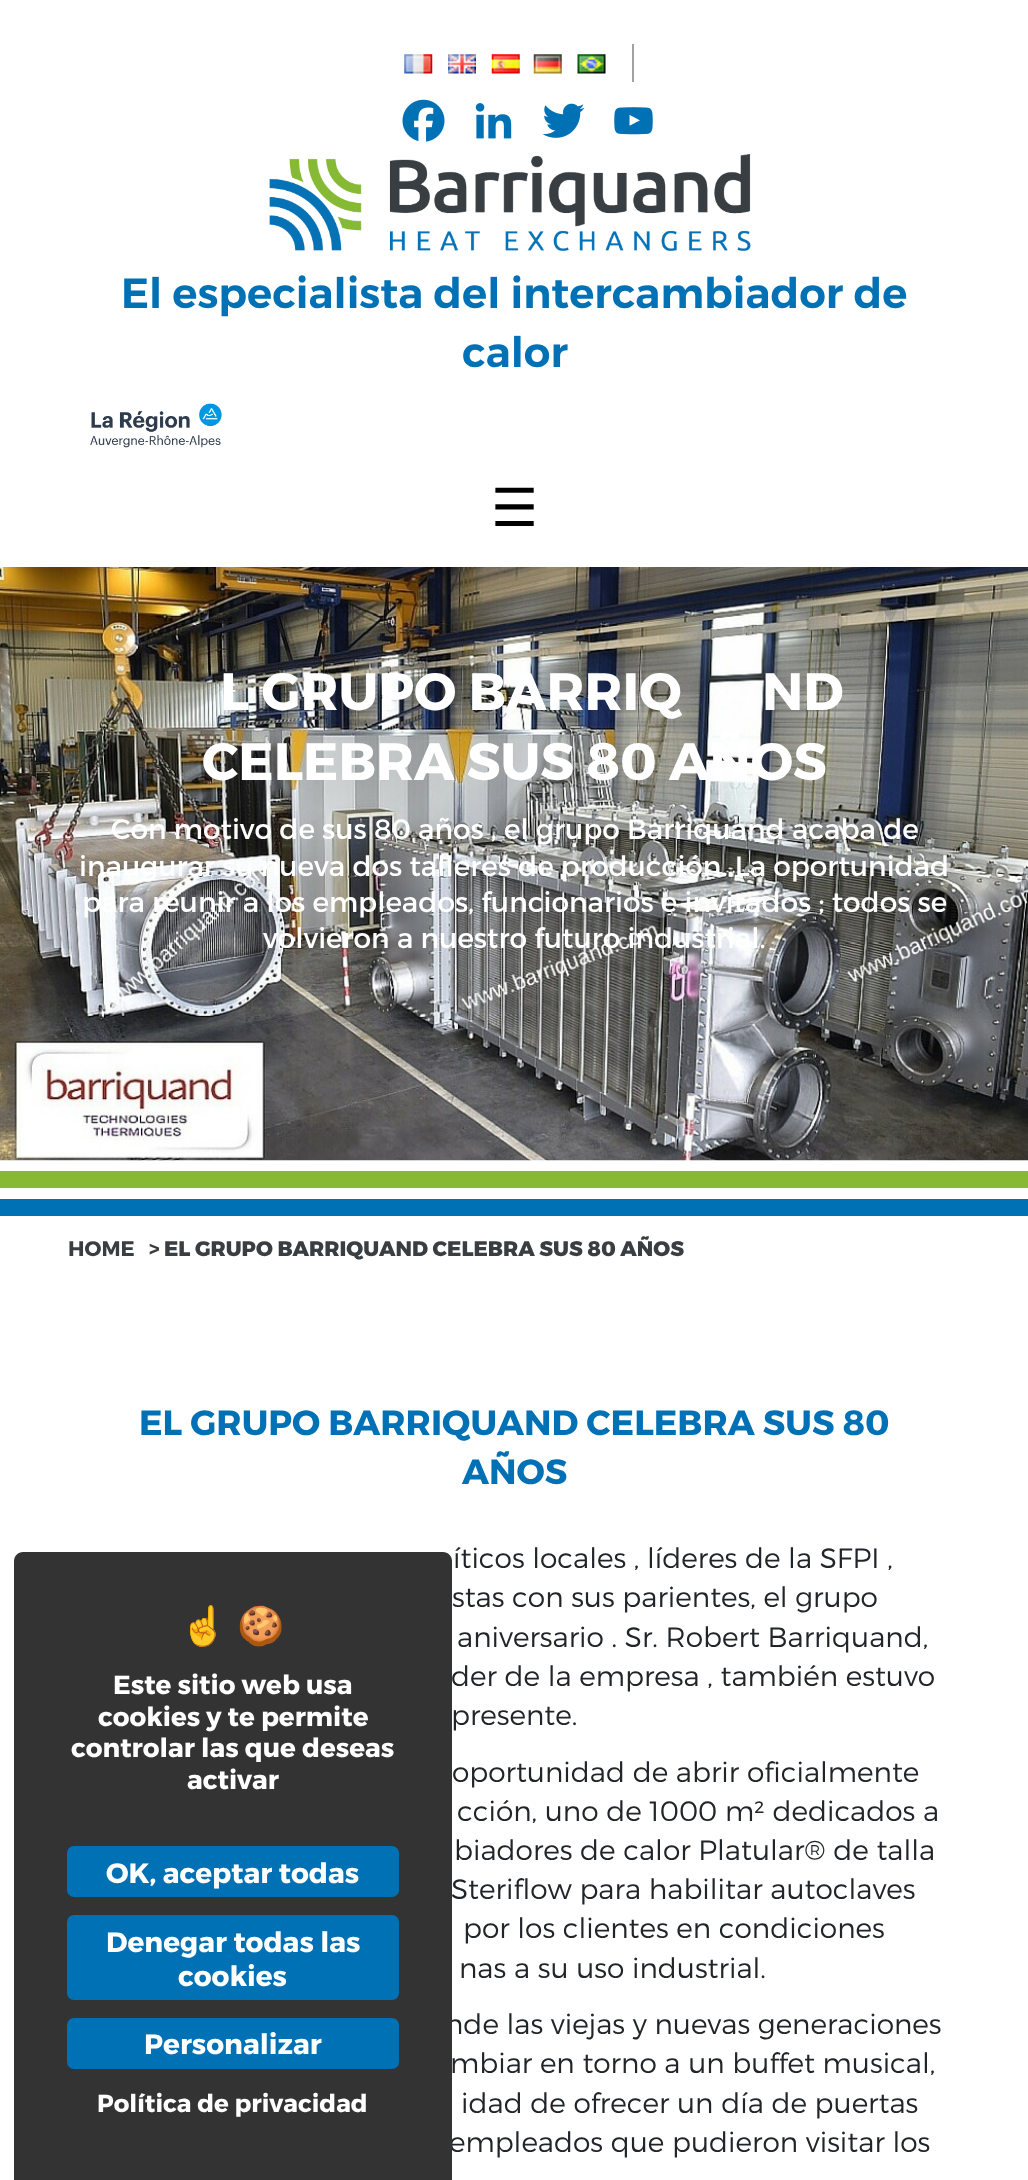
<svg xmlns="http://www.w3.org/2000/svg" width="1028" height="2180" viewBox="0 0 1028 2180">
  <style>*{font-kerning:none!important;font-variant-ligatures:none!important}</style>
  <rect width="100%" height="100%" fill="#fff"/>
  <path d="M632 44h2v38H632z" fill="#a2a0a0"/>
  <image x="404" y="54" width="29" height="20" href="img/1.png"/>
  <image x="448" y="54" width="28" height="20" href="img/2.png"/>
  <image x="491" y="54" width="29" height="20" href="img/3.png"/>
  <image x="533" y="54" width="29" height="20" href="img/4.png"/>
  <image x="577" y="54" width="29" height="20" href="img/5.png"/>
  <image x="402" y="99" width="43" height="43" href="img/6.png"/>
  <image x="475" y="103" width="37" height="36" href="img/7.png"/>
  <image x="542" y="103" width="43" height="35" href="img/8.png"/>
  <image x="614" y="107" width="39" height="28" href="img/9.png"/>
  <image x="269" y="154" width="482" height="97" href="img/10.png"/>
  <image x="90" y="403" width="132" height="45" href="img/11.png"/>
  <image x="0" y="567" width="1028" height="594" href="img/12.png"/>
  <path d="M0 1171h1028v17H0z" fill="#87b934"/>
  <path d="M0 1199h1028v17H0z" fill="#0071b5"/>
  <g font-family="Montserrat" font-size="42" font-weight="600" fill="#0071b5">
    <text x="121" y="308">El especialista del intercambiador de</text>
    <text x="462" y="367">calor</text>
  </g>
  <text x="491" y="526" font-family="DejaVu Sans" font-size="52.5" fill="#000">☰</text>
  <g font-family="Montserrat" font-size="52.5" font-weight="bold" fill="#fff">
    <text x="220" y="710">L GRUPO BARRIQ</text>
    <text x="762" y="710">ND</text>
    <text x="202" y="780">CELEBRA SUS 80 AÑOS</text>
  </g>
  <g font-family="Montserrat" font-size="28" fill="#fff">
    <text x="111" y="839">Con motivo de sus 80 años , el grupo Barriquand acaba de</text>
    <text x="79" y="876">inaugurar su nueva dos talleres de producción. La oportunidad</text>
    <text x="82" y="912">para reunir a los empleados, funcionarios e invitados ; todos se</text>
    <text x="263" y="948">volvieron a nuestro futuro industrial.</text>
  </g>
  <g font-family="Montserrat" font-size="21" font-weight="bold" fill="#383e42">
    <text x="68" y="1256">HOME</text>
    <text x="149" y="1256">&gt;</text>
  </g>
  <text x="164" y="1256" font-family="Montserrat" font-size="21" font-weight="800" fill="#383e42">EL GRUPO BARRIQUAND CELEBRA SUS 80 AÑOS</text>
  <g font-family="Montserrat" font-size="35" font-weight="bold" fill="#0071b5">
    <text x="139" y="1435">EL GRUPO BARRIQUAND CELEBRA SUS 80</text>
    <text x="462" y="1484">AÑOS</text>
  </g>
  <g font-family="Montserrat" font-size="28" font-weight="300" fill="#212529">
    <text x="453" y="1568">íticos locales , líderes de la SFPI ,</text>
    <text x="452" y="1607">stas con sus parientes, el grupo</text>
    <text x="457" y="1647">aniversario . Sr. Robert Barriquand,</text>
    <text x="451" y="1686">der de la empresa , también estuvo</text>
    <text x="451" y="1725">presente.</text>
    <text x="452" y="1782">oportunidad de abrir oficialmente</text>
    <text x="457" y="1821">cción, uno de 1000 m² dedicados a</text>
    <text x="454" y="1860">biadores de calor Platular® de talla</text>
    <text x="451" y="1899">Steriflow para habilitar autoclaves</text>
    <text x="463" y="1938">por los clientes en condiciones</text>
    <text x="459" y="1978">nas a su uso industrial.</text>
    <text x="445" y="2034">nde las viejas y nuevas generaciones</text>
    <text x="450" y="2073">mbiar en torno a un buffet musical,</text>
    <text x="461" y="2113">idad de ofrecer un día de puertas</text>
    <text x="449" y="2152">empleados que pudieron visitar los</text>
  </g>
  <path d="M23 1552H443C448 1552 452 1556 452 1561V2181H14V1561C14 1556 18 1552 23 1552Z" fill="#333"/>
  <g font-family="Noto Color Emoji" font-size="38" fill="#fff">
    <text x="180" y="1639">☝</text>
    <text x="237" y="1639">🍪</text>
  </g>
  <g font-family="Montserrat" font-size="26.25" font-weight="bold" fill="#fff">
    <text x="113" y="1694">Este sitio web usa</text>
    <text x="98" y="1726">cookies y te permite</text>
    <text x="71" y="1757">controlar las que deseas</text>
    <text x="187" y="1789">activar</text>
  </g>
  <rect x="67" y="1846" width="332" height="51" rx="7" fill="#0071b5"/>
  <text x="106" y="1883" font-family="Montserrat" font-size="28" font-weight="bold" fill="#fff">OK, aceptar todas</text>
  <rect x="67" y="1915" width="332" height="85" rx="7" fill="#0071b5"/>
  <g font-family="Montserrat" font-size="28" font-weight="bold" fill="#fff">
    <text x="106" y="1952">Denegar todas las</text>
    <text x="178" y="1986">cookies</text>
  </g>
  <rect x="67" y="2018" width="332" height="51" rx="7" fill="#0071b5"/>
  <text x="144" y="2054" font-family="Montserrat" font-size="28" font-weight="bold" fill="#fff">Personalizar</text>
  <text x="97" y="2112" font-family="Montserrat" font-size="24.5" font-weight="bold" fill="#fff">Política de privacidad</text>
</svg>
